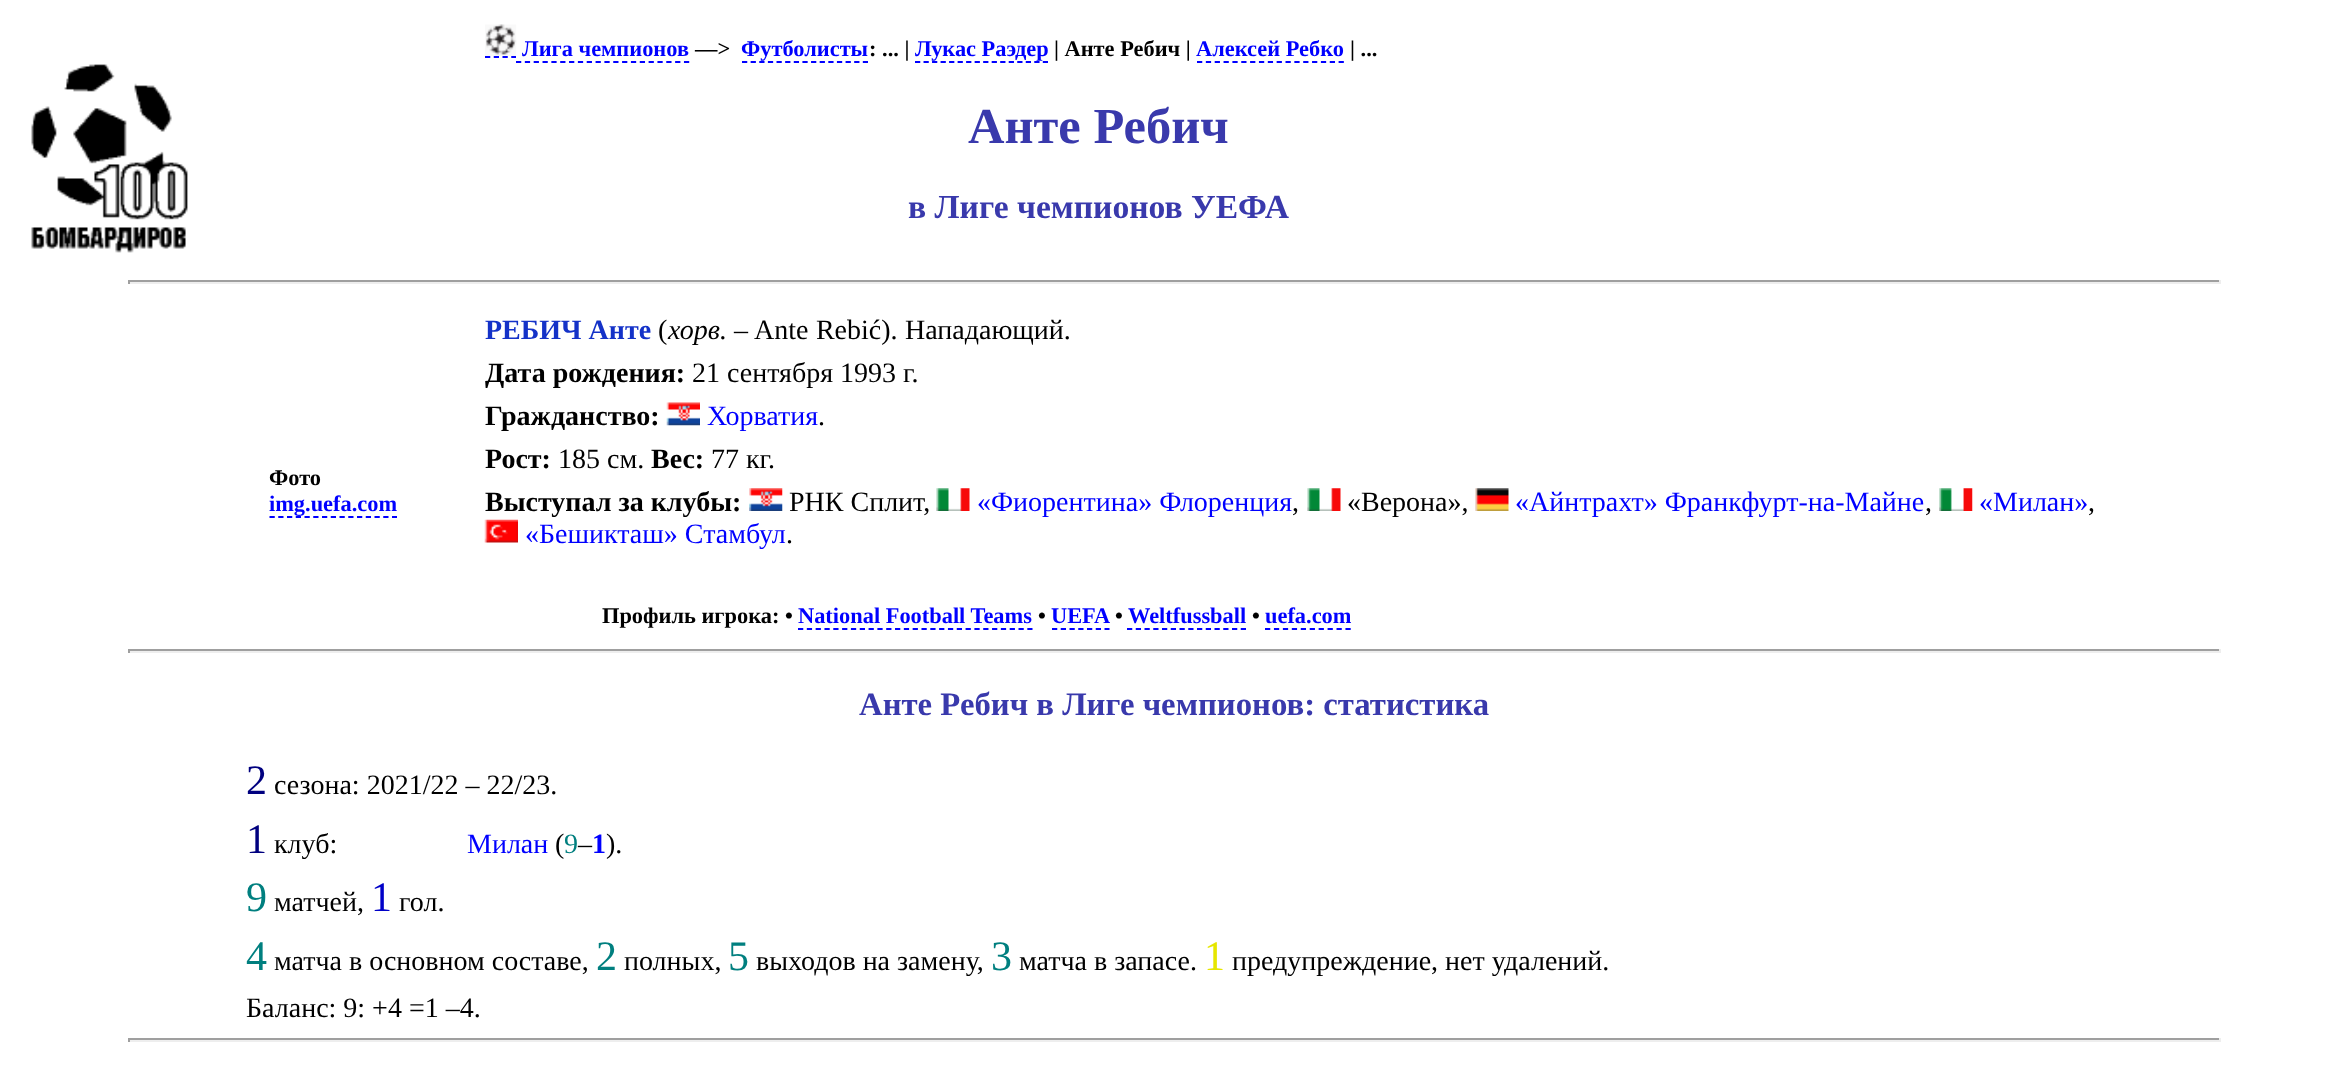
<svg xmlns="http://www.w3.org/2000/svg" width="2347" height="1089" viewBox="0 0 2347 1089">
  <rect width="100%" height="100%" fill="#fff"/>
  <image x="31" y="64" width="157" height="189" href="img/1.png"/>
  <image x="485" y="24" width="32" height="32" href="img/2.png"/>
  <path d="M485 57H516" fill="none" stroke="#00f" stroke-width="1.8" stroke-dasharray="5.25 3.5"/>
  <path d="M516 62H689.5" fill="none" stroke="#00f" stroke-width="1.8" stroke-dasharray="5.25 3.59"/>
  <path d="M742 62H868" fill="none" stroke="#00f" stroke-width="1.8" stroke-dasharray="5.25 3.38"/>
  <path d="M915 62H1048" fill="none" stroke="#00f" stroke-width="1.8" stroke-dasharray="5.25 3.27"/>
  <path d="M1197 62H1344" fill="none" stroke="#00f" stroke-width="1.8" stroke-dasharray="5.25 3.6"/>
  <path d="M128 280h2093v2H128z" fill="#9f9f9f"/>
  <path d="M2219 280h2v4H2219z" fill="#eee"/>
  <path d="M128 282h2093v2H128z" fill="#eee"/>
  <path d="M128 280h2v4H128z" fill="#9f9f9f"/>
  <path d="M269.5 517H397" fill="none" stroke="#00f" stroke-width="1.8" stroke-dasharray="5.25 3.5"/>
  <image x="666" y="402" width="34" height="24" href="img/3.png"/>
  <image x="749" y="488" width="34" height="23" href="img/4.png"/>
  <image x="936" y="488" width="34" height="23" href="img/5.png"/>
  <image x="1307" y="488" width="34" height="23" href="img/5.png"/>
  <image x="1475" y="488" width="34" height="23" href="img/6.png"/>
  <image x="1939" y="488" width="34" height="23" href="img/7.png"/>
  <image x="484" y="519" width="34" height="24" href="img/8.png"/>
  <path d="M798 629H1032.5" fill="none" stroke="#00f" stroke-width="1.8" stroke-dasharray="5.25 3.57"/>
  <path d="M1052 629H1109.5" fill="none" stroke="#00f" stroke-width="1.8" stroke-dasharray="5.25 3.5"/>
  <path d="M1127 629H1246" fill="none" stroke="#00f" stroke-width="1.8" stroke-dasharray="5.25 3.5"/>
  <path d="M1265 629H1351" fill="none" stroke="#00f" stroke-width="1.8" stroke-dasharray="5.25 3.69"/>
  <path d="M128 649h2093v2H128z" fill="#9f9f9f"/>
  <path d="M2219 649h2v4H2219z" fill="#eee"/>
  <path d="M128 651h2093v2H128z" fill="#eee"/>
  <path d="M128 649h2v4H128z" fill="#9f9f9f"/>
  <path d="M128 1038h2093v2H128z" fill="#9f9f9f"/>
  <path d="M2219 1038h2v4H2219z" fill="#eee"/>
  <path d="M128 1040h2093v2H128z" fill="#eee"/>
  <path d="M128 1038h2v4H128z" fill="#9f9f9f"/>
  <text x="522" y="56" font-family="Liberation Serif" font-size="22.4" font-weight="bold" fill="#00f">Лига чемпионов</text>
  <text x="695" y="56" font-family="Liberation Serif" font-size="22.4" font-weight="bold" fill="#000">—&gt;</text>
  <text x="741" y="56" font-family="Liberation Serif" font-size="22.4" font-weight="bold" fill="#00f">Футболисты</text>
  <text x="869" y="56" font-family="Liberation Serif" font-size="22.4" font-weight="bold" fill="#000">: ... |</text>
  <text x="915" y="56" font-family="Liberation Serif" font-size="22.4" font-weight="bold" fill="#00f">Лукас Раэдер</text>
  <text x="1054" y="56" font-family="Liberation Serif" font-size="22.4" font-weight="bold" fill="#000">| Анте Ребич |</text>
  <text x="1196" y="56" font-family="Liberation Serif" font-size="22.4" font-weight="bold" fill="#00f">Алексей Ребко</text>
  <text x="1350" y="56" font-family="Liberation Serif" font-size="22.4" font-weight="bold" fill="#000">| ...</text>
  <text x="968" y="143" font-family="Liberation Serif" font-size="50.5" font-weight="bold" fill="#3939ac">Анте Ребич</text>
  <text x="908" y="218" font-family="Liberation Serif" font-size="33.6" font-weight="bold" fill="#3939ac">в Лиге чемпионов УЕФА</text>
  <text x="269" y="485" font-family="Liberation Serif" font-size="22.4" font-weight="bold" fill="#000">Фото</text>
  <text x="269" y="511" font-family="Liberation Serif" font-size="22.4" font-weight="bold" fill="#00f">img.uefa.com</text>
  <text x="485" y="339" font-family="Liberation Serif" font-size="28" font-weight="bold" fill="#1432c8">РЕБИЧ Анте</text>
  <text x="658" y="339" font-family="Liberation Serif" font-size="28" fill="#000">(</text>
  <text x="668" y="339" font-family="Liberation Serif" font-size="28" font-style="italic" fill="#000">хорв.</text>
  <text x="734" y="339" word-spacing="0.5" font-family="Liberation Serif" font-size="28" fill="#000">– Ante Rebić). Нападающий.</text>
  <text x="485" y="382" font-family="Liberation Serif" font-size="28" font-weight="bold" fill="#000">Дата рождения:</text>
  <text x="692" y="382" font-family="Liberation Serif" font-size="28" fill="#000">21 сентября 1993 г.</text>
  <text x="485" y="425" font-family="Liberation Serif" font-size="28" font-weight="bold" fill="#000">Гражданство:</text>
  <text x="707" y="425" font-family="Liberation Serif" font-size="28" fill="#00f">Хорватия</text>
  <text x="818" y="425" font-family="Liberation Serif" font-size="28" fill="#000">.</text>
  <text x="485" y="468" font-family="Liberation Serif" font-size="28" font-weight="bold" fill="#000">Рост:</text>
  <text x="558" y="468" font-family="Liberation Serif" font-size="28" fill="#000">185 см.</text>
  <text x="651" y="468" font-family="Liberation Serif" font-size="28" font-weight="bold" fill="#000">Вес:</text>
  <text x="711" y="468" font-family="Liberation Serif" font-size="28" fill="#000">77 кг.</text>
  <text x="485" y="511" font-family="Liberation Serif" font-size="28" font-weight="bold" fill="#000">Выступал за клубы:</text>
  <text x="789" y="511" font-family="Liberation Serif" font-size="28" fill="#000">РНК Сплит,</text>
  <text x="977" y="511" font-family="Liberation Serif" font-size="28" fill="#00f">«Фиорентина» Флоренция</text>
  <g font-family="Liberation Serif" font-size="28" fill="#000">
    <text x="1292" y="511">,</text>
    <text x="1347" y="511">«Верона»,</text>
  </g>
  <text x="1515" y="511" font-family="Liberation Serif" font-size="28" fill="#00f">«Айнтрахт» Франкфурт-на-Майне</text>
  <text x="1925" y="511" font-family="Liberation Serif" font-size="28" fill="#000">,</text>
  <text x="1979" y="511" font-family="Liberation Serif" font-size="28" fill="#00f">«Милан»</text>
  <text x="2088" y="511" font-family="Liberation Serif" font-size="28" fill="#000">,</text>
  <text x="525" y="543" font-family="Liberation Serif" font-size="28" fill="#00f">«Бешикташ» Стамбул</text>
  <text x="786" y="543" font-family="Liberation Serif" font-size="28" fill="#000">.</text>
  <text x="602" y="623" font-family="Liberation Serif" font-size="22.4" font-weight="bold" fill="#000">Профиль игрока: •</text>
  <text x="798" y="623" font-family="Liberation Serif" font-size="22.4" font-weight="bold" fill="#00f">National Football Teams</text>
  <text x="1038" y="623" font-family="Liberation Serif" font-size="22.4" font-weight="bold" fill="#000">•</text>
  <text x="1051" y="623" font-family="Liberation Serif" font-size="22.4" font-weight="bold" fill="#00f">UEFA</text>
  <text x="1115" y="623" font-family="Liberation Serif" font-size="22.4" font-weight="bold" fill="#000">•</text>
  <text x="1128" y="623" font-family="Liberation Serif" font-size="22.4" font-weight="bold" fill="#00f">Weltfussball</text>
  <text x="1252" y="623" font-family="Liberation Serif" font-size="22.4" font-weight="bold" fill="#000">•</text>
  <text x="1265" y="623" font-family="Liberation Serif" font-size="22.4" font-weight="bold" fill="#00f">uefa.com</text>
  <text x="859" y="715" font-family="Liberation Serif" font-size="32.75" font-weight="bold" fill="#3939ac">Анте Ребич в Лиге чемпионов: статистика</text>
  <text x="246" y="794" font-family="Liberation Serif" font-size="42" fill="#00007f">2</text>
  <text x="274" y="794" font-family="Liberation Serif" font-size="28" fill="#000">сезона: 2021/22 – 22/23.</text>
  <text x="246" y="853" font-family="Liberation Serif" font-size="42" fill="#00007f">1</text>
  <text x="274" y="853" font-family="Liberation Serif" font-size="28" fill="#000">клуб:</text>
  <text x="467" y="853" font-family="Liberation Serif" font-size="28" fill="#00f">Милан</text>
  <text x="555" y="853" font-family="Liberation Serif" font-size="28" fill="#000">(</text>
  <text x="564" y="853" font-family="Liberation Serif" font-size="28" fill="#007f7f">9</text>
  <text x="578" y="853" font-family="Liberation Serif" font-size="28" fill="#000">–</text>
  <text x="592" y="853" font-family="Liberation Serif" font-size="28" font-weight="bold" fill="#00f">1</text>
  <text x="606" y="853" font-family="Liberation Serif" font-size="28" fill="#000">).</text>
  <text x="246" y="911" font-family="Liberation Serif" font-size="42" fill="#007f7f">9</text>
  <text x="274" y="911" font-family="Liberation Serif" font-size="28" fill="#000">матчей,</text>
  <text x="371" y="911" font-family="Liberation Serif" font-size="42" fill="#0000c8">1</text>
  <text x="399" y="911" font-family="Liberation Serif" font-size="28" fill="#000">гол.</text>
  <text x="246" y="970" font-family="Liberation Serif" font-size="42" fill="#007f7f">4</text>
  <text x="274" y="970" font-family="Liberation Serif" font-size="28" fill="#000">матча в основном составе,</text>
  <text x="596" y="970" font-family="Liberation Serif" font-size="42" fill="#007f7f">2</text>
  <text x="624" y="970" font-family="Liberation Serif" font-size="28" fill="#000">полных,</text>
  <text x="728" y="970" font-family="Liberation Serif" font-size="42" fill="#007f7f">5</text>
  <text x="756" y="970" font-family="Liberation Serif" font-size="28" fill="#000">выходов на замену,</text>
  <text x="991" y="970" font-family="Liberation Serif" font-size="42" fill="#007f7f">3</text>
  <text x="1019" y="970" font-family="Liberation Serif" font-size="28" fill="#000">матча в запасе.</text>
  <text x="1204" y="970" font-family="Liberation Serif" font-size="42" fill="#e6e600">1</text>
  <g font-family="Liberation Serif" font-size="28" fill="#000">
    <text x="1232" y="970">предупреждение, нет удалений.</text>
    <text x="246" y="1017">Баланс: 9: +4 =1 –4.</text>
  </g>
</svg>
